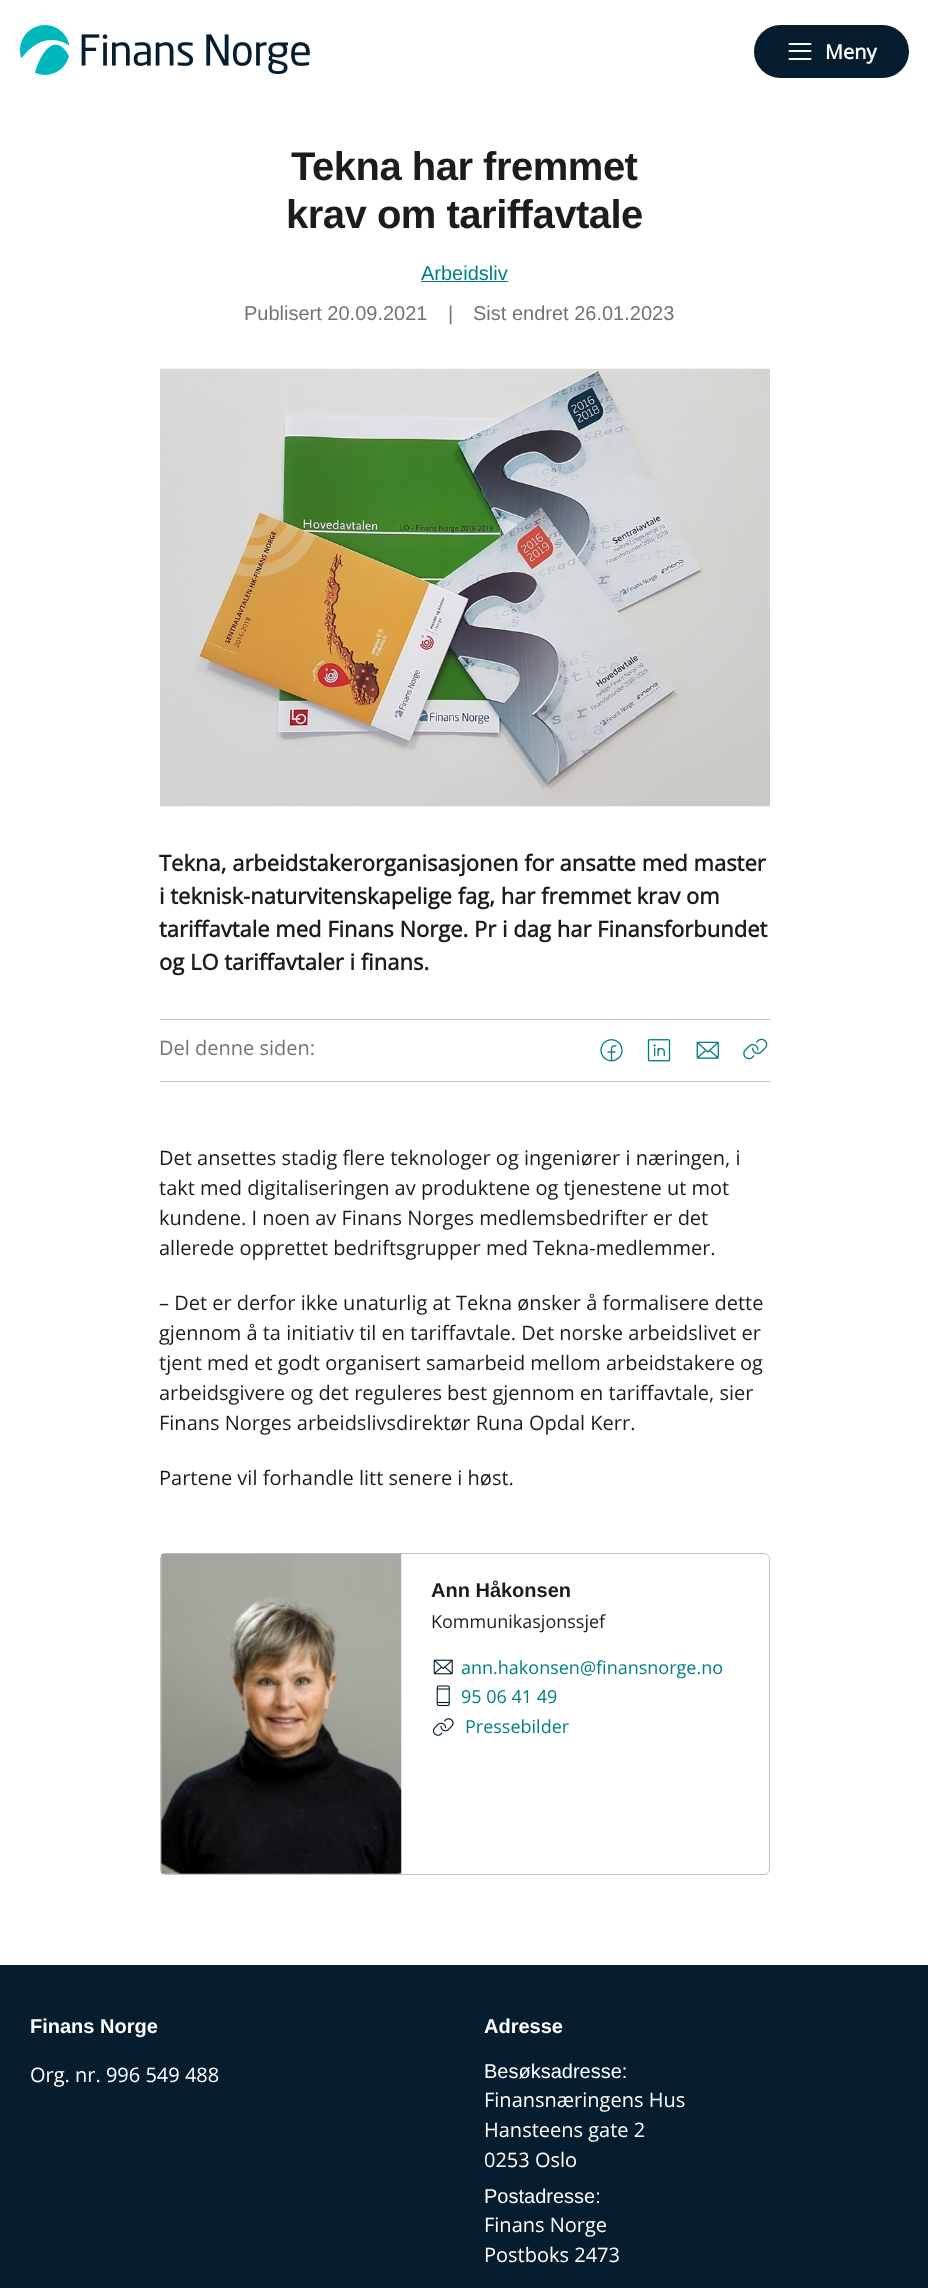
<svg xmlns="http://www.w3.org/2000/svg" width="928" height="2288" viewBox="0 0 928 2288">
  <rect width="100%" height="100%" fill="#fff"/>
  <image x="20" y="25" width="290" height="50" href="img/1.png"/>
  <rect x="754" y="25" width="155" height="53" rx="26.5" fill="#051d2e"/>
  <path d="M789.5 51H810.5M789.5 44H810.5M789.5 59H810.5" fill="none" stroke="#fff" stroke-width="1.9" stroke-linecap="round" stroke-linejoin="round"/>
  <path d="M421 281h87v1H421z" fill="#007e82"/>
  <image x="160" y="368" width="610" height="439" href="img/2.png"/>
  <path d="M160 1019h610v1H160z" fill="#c1c1c1"/>
  <path d="M160 1081h610v1H160z" fill="#c1c1c1"/>
  <image x="600" y="1039" width="23" height="23" href="img/3.png"/>
  <image x="647" y="1039" width="24" height="23" href="img/4.png"/>
  <image x="696" y="1041" width="23" height="18" href="img/5.png"/>
  <image x="743" y="1038" width="25" height="22" href="img/6.png"/>
  <rect x="160.5" y="1553.5" width="609" height="321" rx="5.5" fill="none" stroke="#c1c1c1"/>
  <image x="161" y="1553" width="241" height="321" href="img/7.png"/>
  <image x="433" y="1659" width="20" height="16" href="img/8.png"/>
  <image x="436" y="1685" width="14" height="22" href="img/9.png"/>
  <image x="432" y="1718" width="22" height="18" href="img/10.png"/>
  <path d="M0 1965h928v323H0z" fill="#051d2e"/>
  <text x="825" y="59" font-family="Open Sans" font-size="20" font-weight="bold" fill="#fff">Meny</text>
  <g font-family="Liberation Sans" font-size="40" font-weight="bold" letter-spacing="-0.5" fill="#1c1c1c">
    <text x="291" y="180">Tekna har fremmet</text>
    <text x="286" y="228">krav om tariffavtale</text>
  </g>
  <text x="421" y="280" font-family="Liberation Sans" font-size="20" fill="#007e82">Arbeidsliv</text>
  <g font-family="Liberation Sans" font-size="20" fill="#737373">
    <text x="244" y="320">Publisert 20.09.2021</text>
    <text x="448" y="320">|</text>
    <text x="473" y="320">Sist endret 26.01.2023</text>
  </g>
  <g font-family="Open Sans" font-size="22" font-weight="bold" fill="#1c1c1c">
    <text x="159" y="871">Tekna, arbeidstakerorganisasjonen for ansatte med master</text>
    <text x="159" y="904">i teknisk-naturvitenskapelige fag, har fremmet krav om</text>
    <text x="159" y="937">tariffavtale med Finans Norge. Pr i dag har Finansforbundet</text>
    <text x="159" y="970">og LO tariffavtaler i finans.</text>
  </g>
  <text x="159" y="1055" font-family="Open Sans" font-size="20" fill="#737373">Del denne siden:</text>
  <g font-family="Open Sans" font-size="20" fill="#1c1c1c">
    <text x="159" y="1165">Det ansettes stadig flere teknologer og ingeniører i næringen, i</text>
    <text x="159" y="1195">takt med digitaliseringen av produktene og tjenestene ut mot</text>
    <text x="159" y="1225">kundene. I noen av Finans Norges medlemsbedrifter er det</text>
    <text x="159" y="1255">allerede opprettet bedriftsgrupper med Tekna-medlemmer.</text>
    <text x="159" y="1310">– Det er derfor ikke unaturlig at Tekna ønsker å formalisere dette</text>
    <text x="159" y="1340">gjennom å ta initiativ til en tariffavtale. Det norske arbeidslivet er</text>
    <text x="159" y="1370">tjent med et godt organisert samarbeid mellom arbeidstakere og</text>
    <text x="159" y="1400">arbeidsgivere og det reguleres best gjennom en tariffavtale, sier</text>
    <text x="159" y="1430">Finans Norges arbeidslivsdirektør Runa Opdal Kerr.</text>
    <text x="159" y="1485">Partene vil forhandle litt senere i høst.</text>
  </g>
  <text x="431" y="1597" font-family="Liberation Sans" font-size="20" font-weight="bold" fill="#1c1c1c">Ann Håkonsen</text>
  <text x="431" y="1628" font-family="Open Sans" font-size="18" fill="#1c1c1c">Kommunikasjonssjef</text>
  <g font-family="Open Sans" font-size="18" fill="#007e82">
    <text x="461" y="1674">ann.hakonsen@finansnorge.no</text>
    <text x="461" y="1703">95 06 41 49</text>
    <text x="465" y="1733">Pressebilder</text>
  </g>
  <text x="30" y="2033" font-family="Liberation Sans" font-size="20" font-weight="bold" fill="#fff">Finans Norge</text>
  <text x="30" y="2082" font-family="Open Sans" font-size="20" fill="#fff">Org. nr. 996 549 488</text>
  <text x="484" y="2033" font-family="Liberation Sans" font-size="20" font-weight="bold" fill="#fff">Adresse</text>
  <text x="484" y="2078" font-family="Liberation Sans" font-size="20" fill="#fff">Besøksadresse:</text>
  <g font-family="Open Sans" font-size="20" fill="#fff">
    <text x="484" y="2107">Finansnæringens Hus</text>
    <text x="484" y="2137">Hansteens gate 2</text>
    <text x="484" y="2167">0253 Oslo</text>
  </g>
  <text x="484" y="2203" font-family="Liberation Sans" font-size="20" fill="#fff">Postadresse:</text>
  <g font-family="Open Sans" font-size="20" fill="#fff">
    <text x="484" y="2232">Finans Norge</text>
    <text x="484" y="2262">Postboks 2473</text>
  </g>
</svg>
